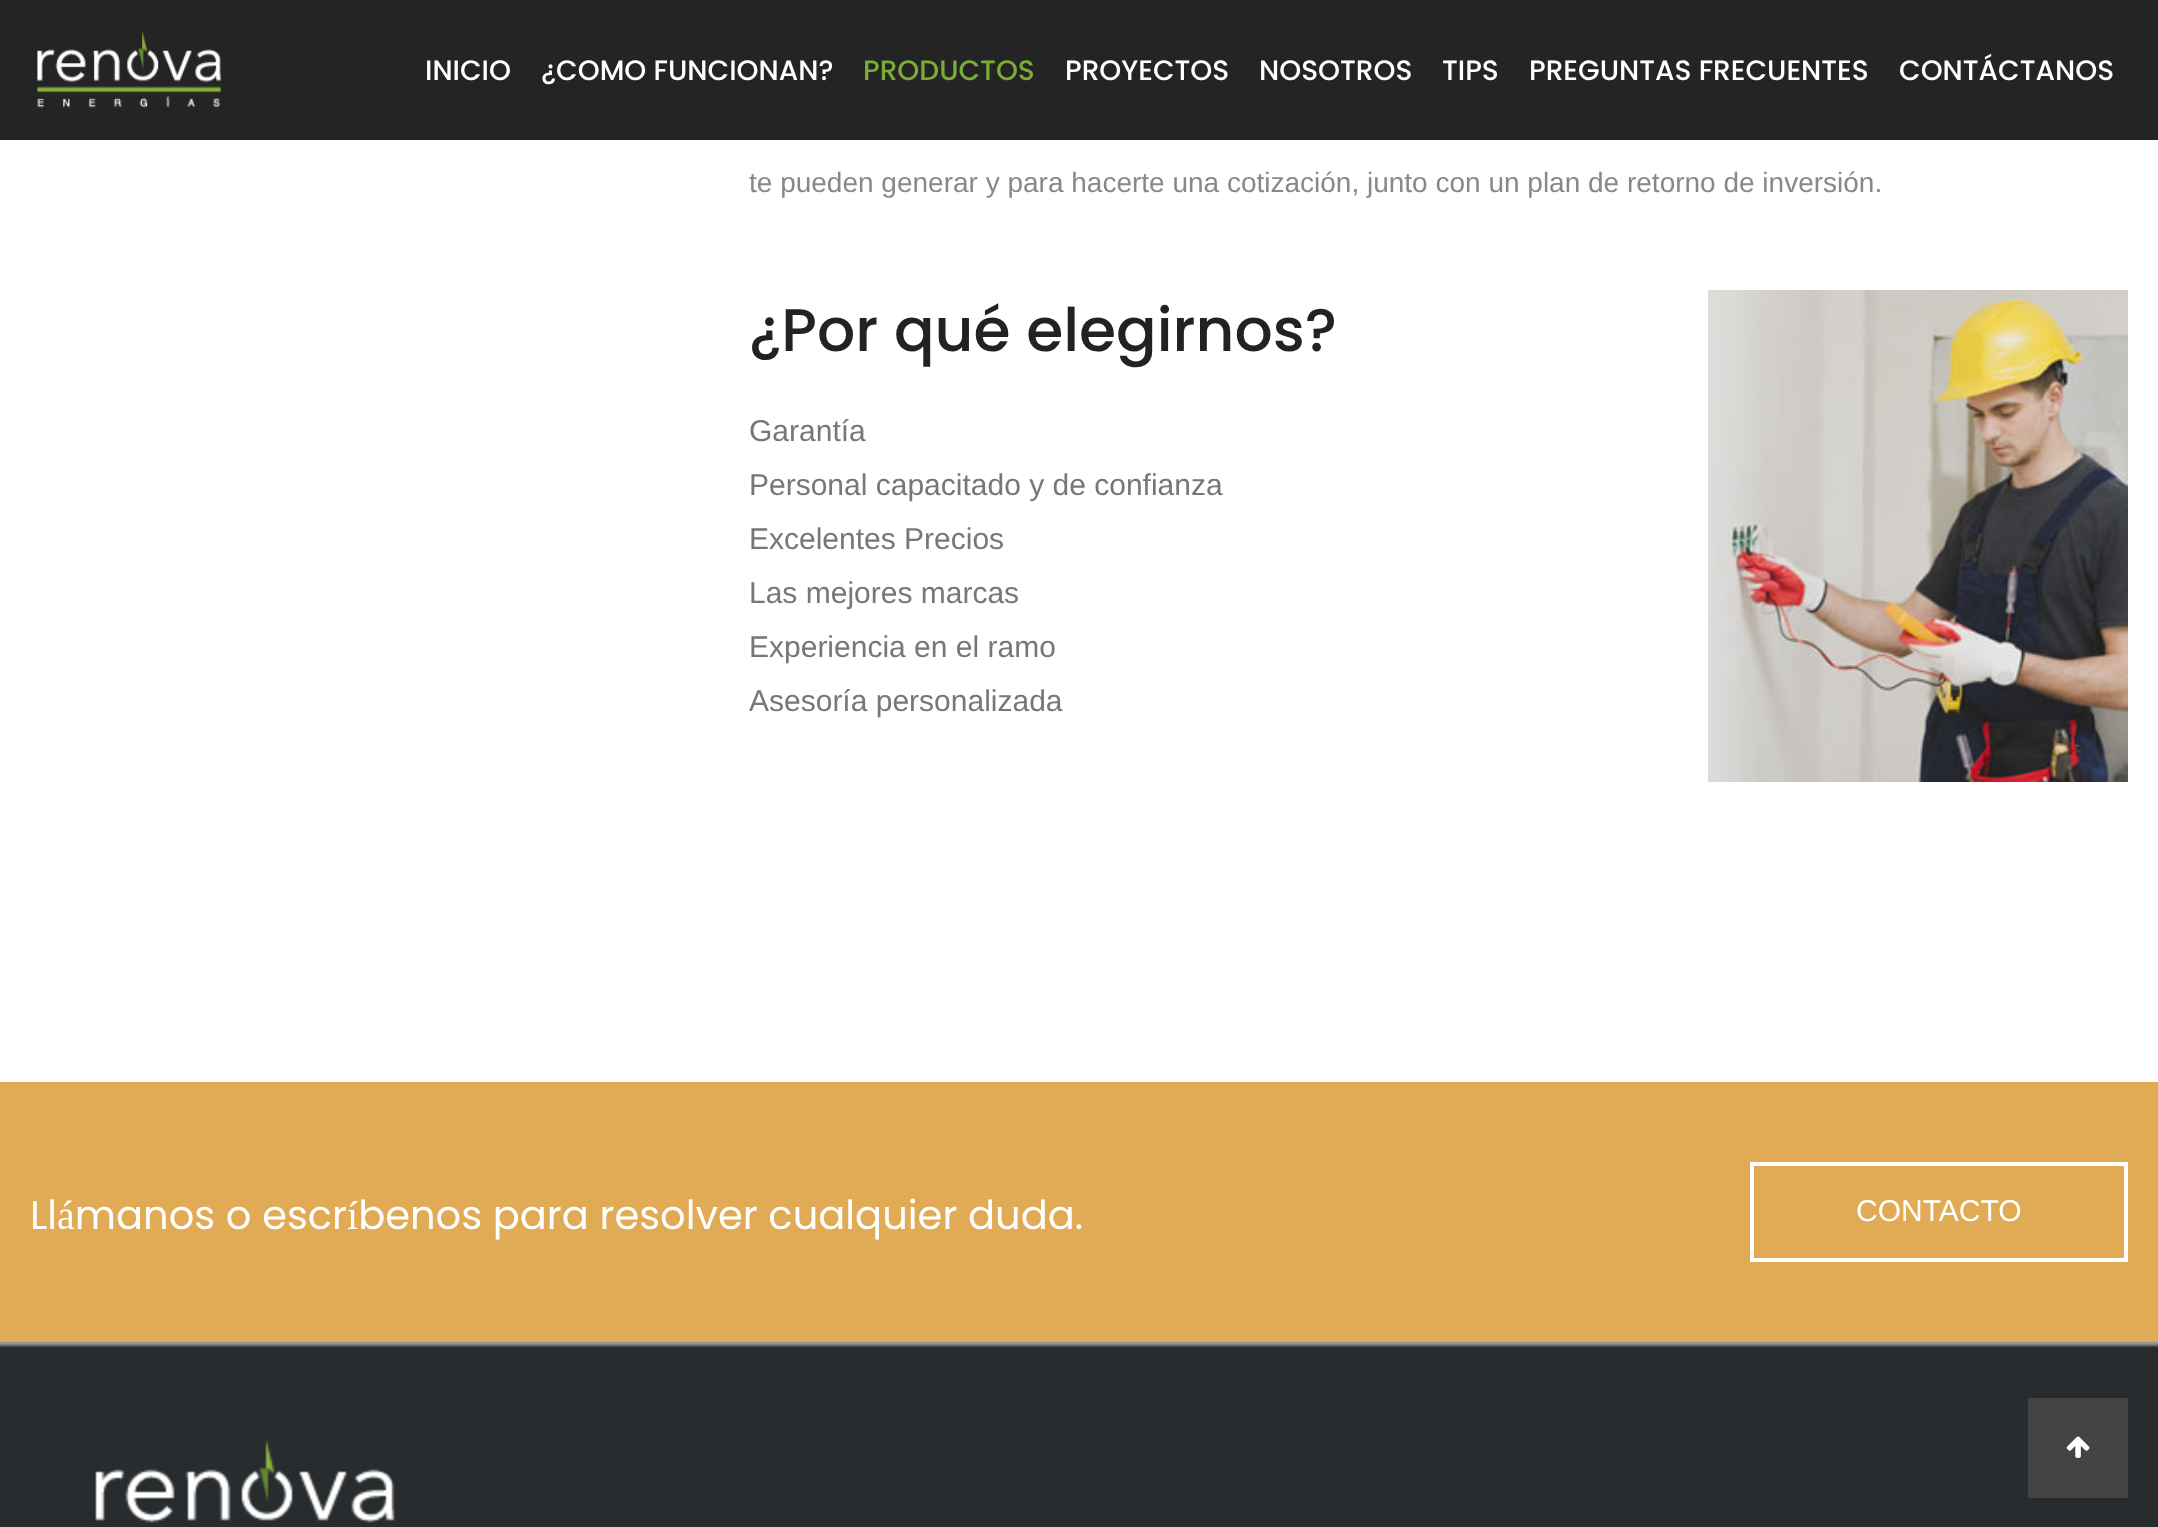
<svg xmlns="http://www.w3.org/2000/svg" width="2158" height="1527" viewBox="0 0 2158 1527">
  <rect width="100%" height="100%" fill="#fff"/>
  <path d="M0 0h2158v140H0z" fill="#242424"/>
  <image x="37" y="31" width="185" height="77" href="img/1.png"/>
  <image x="1708" y="290" width="420" height="492" href="img/2.png"/>
  <path d="M0 1082h2158v260H0z" fill="#e1ab55"/>
  <path d="M1752 1164h374v96H1752z" fill="none" stroke="#fff" stroke-width="4"/>
  <image x="0" y="1342" width="2158" height="185" href="img/3.png"/>
  <image x="95" y="1440" width="300" height="83" href="img/4.png"/>
  <path d="M2028 1398h100v100H2028z" fill="#444"/>
  <image x="2066" y="1436" width="24" height="22" href="img/5.png"/>
  <g font-family="Poppins" font-size="28" font-weight="500" fill="#fff">
    <text x="425" y="80">INICIO</text>
    <text x="541" y="80">¿COMO FUNCIONAN?</text>
  </g>
  <text x="863" y="80" font-family="Poppins" font-size="28" font-weight="500" fill="#7bab39">PRODUCTOS</text>
  <g font-family="Poppins" font-size="28" font-weight="500" fill="#fff">
    <text x="1065" y="80">PROYECTOS</text>
    <text x="1259" y="80">NOSOTROS</text>
    <text x="1442" y="80">TIPS</text>
    <text x="1529" y="80">PREGUNTAS FRECUENTES</text>
    <text x="1899" y="80">CONTÁCTANOS</text>
  </g>
  <text x="749" y="192" font-family="Arimo" font-size="28" fill="#888">te pueden generar y para hacerte una cotización, junto con un plan de retorno de inversión.</text>
  <text x="749" y="351" font-family="Poppins" font-size="60" font-weight="500" fill="#222">¿Por qué elegirnos?</text>
  <g font-family="Arimo" font-size="30" fill="#777">
    <text x="749" y="441">Garantía</text>
    <text x="749" y="495">Personal capacitado y de confianza</text>
    <text x="749" y="549">Excelentes Precios</text>
    <text x="749" y="603">Las mejores marcas</text>
    <text x="749" y="657">Experiencia en el ramo</text>
    <text x="749" y="711">Asesoría personalizada</text>
  </g>
  <text x="30" y="1229" font-family="Poppins" font-size="40" fill="#fff">Llámanos o escríbenos para resolver cualquier duda.</text>
  <text x="1856" y="1221" font-family="Arimo" font-size="30" fill="#fff">CONTACTO</text>
</svg>
